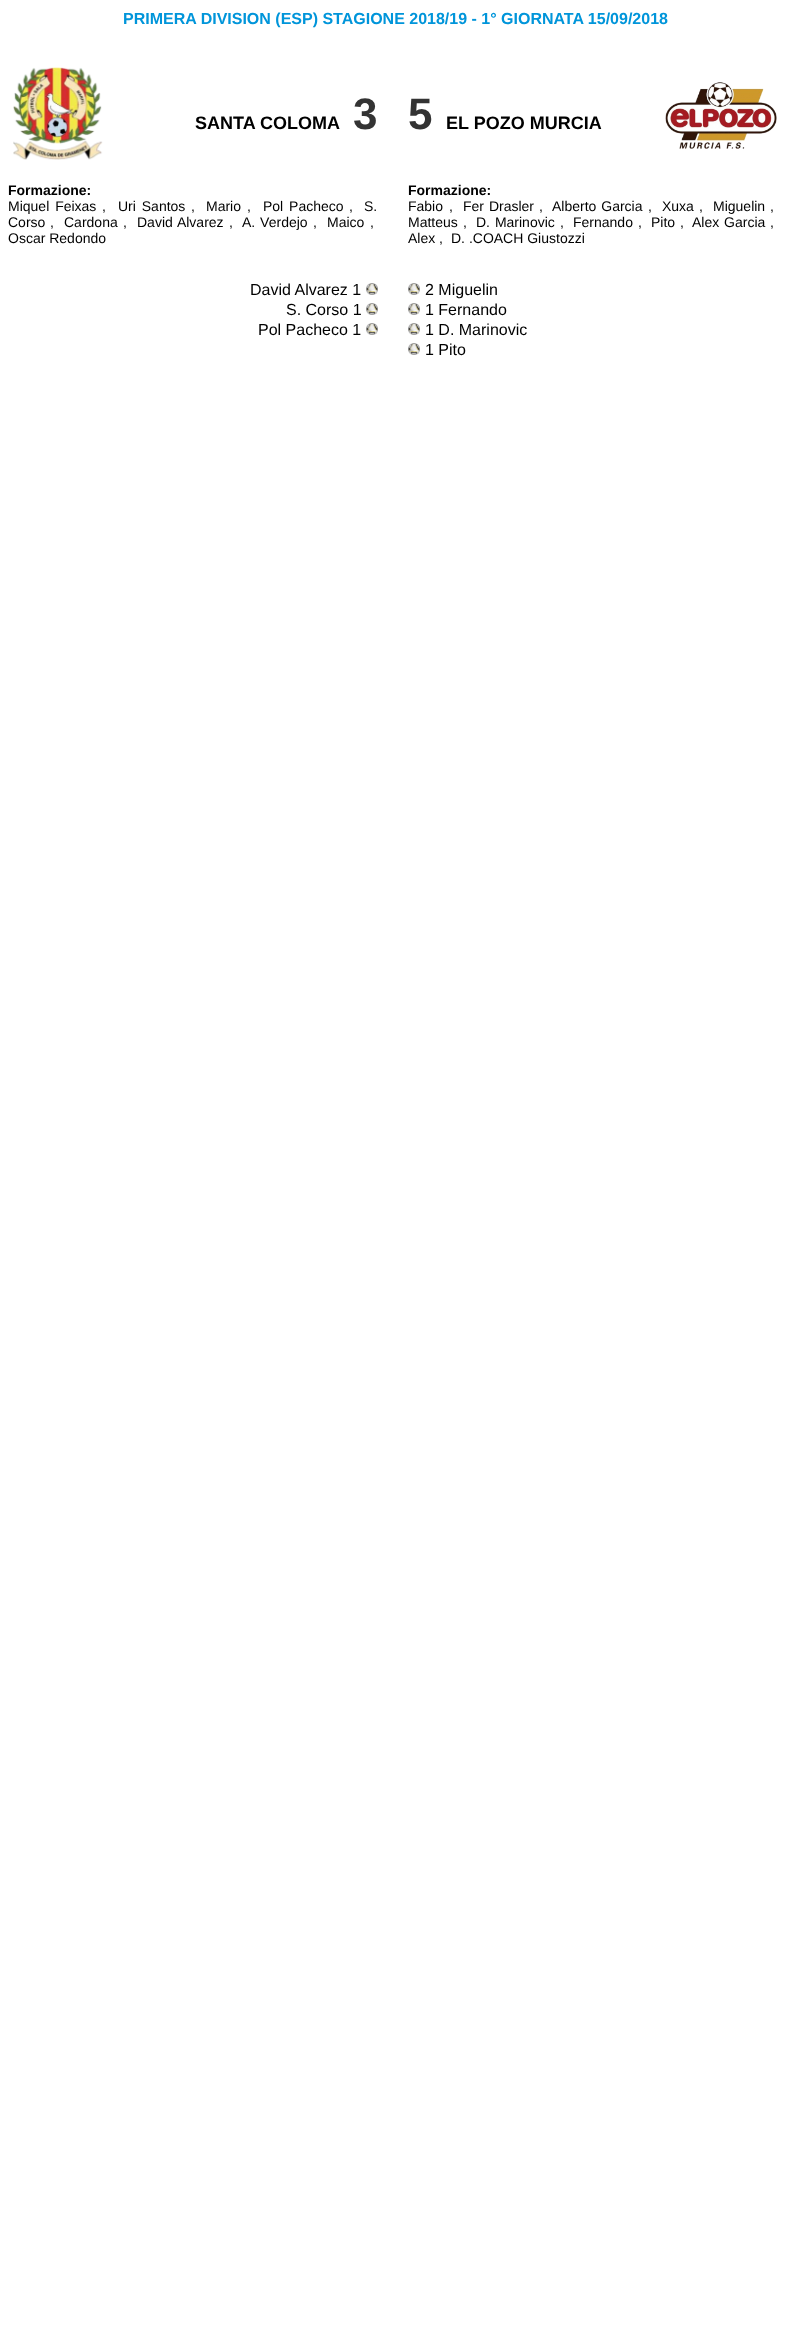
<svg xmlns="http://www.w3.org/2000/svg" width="786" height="2335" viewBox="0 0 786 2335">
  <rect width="100%" height="100%" fill="#fff"/>
  <image x="13" y="67" width="90" height="93" href="img/1.png"/>
  <image x="366" y="283" width="12" height="12" href="img/2.png"/>
  <image x="366" y="303" width="12" height="12" href="img/2.png"/>
  <image x="366" y="323" width="12" height="12" href="img/2.png"/>
  <image x="665" y="82" width="112" height="67" href="img/3.png"/>
  <image x="408" y="283" width="12" height="12" href="img/2.png"/>
  <image x="408" y="303" width="12" height="12" href="img/2.png"/>
  <image x="408" y="323" width="12" height="12" href="img/2.png"/>
  <image x="408" y="343" width="12" height="12" href="img/2.png"/>
  <text x="123" y="24" font-family="Liberation Sans" font-size="16" font-weight="bold" fill="#0095da">PRIMERA DIVISION (ESP) STAGIONE 2018/19 - 1° GIORNATA 15/09/2018</text>
  <text x="195" y="129" font-family="Liberation Sans" font-size="18" font-weight="bold" fill="#000">SANTA COLOMA</text>
  <text x="353" y="129" font-family="Liberation Sans" font-size="44" font-weight="bold" fill="#333">3</text>
  <text x="8" y="195" font-family="Liberation Sans" font-size="14" font-weight="bold" fill="#000">Formazione:</text>
  <g font-family="Liberation Sans" font-size="14" fill="#000">
    <text x="8" y="211" word-spacing="2">Miquel Feixas</text>
    <text x="102" y="211">,</text>
    <text x="118" y="211" word-spacing="2">Uri Santos</text>
    <text x="191" y="211">,</text>
    <text x="206" y="211">Mario</text>
    <text x="247" y="211">,</text>
    <text x="263" y="211" word-spacing="2">Pol Pacheco</text>
    <text x="349" y="211">,</text>
    <text x="364" y="211">S.</text>
    <text x="8" y="227">Corso</text>
    <text x="50" y="227">,</text>
    <text x="64" y="227">Cardona</text>
    <text x="123" y="227">,</text>
    <text x="137" y="227" word-spacing="1">David Alvarez</text>
    <text x="229" y="227">,</text>
    <text x="242" y="227" word-spacing="1">A. Verdejo</text>
    <text x="313" y="227">,</text>
    <text x="327" y="227">Maico</text>
    <text x="370" y="227">,</text>
    <text x="8" y="243">Oscar Redondo</text>
  </g>
  <g font-family="Liberation Sans" font-size="16" fill="#000">
    <text x="250" y="295">David Alvarez 1</text>
    <text x="286" y="315">S. Corso 1</text>
    <text x="258" y="335">Pol Pacheco 1</text>
  </g>
  <text x="408" y="129" font-family="Liberation Sans" font-size="44" font-weight="bold" fill="#333">5</text>
  <text x="446" y="129" font-family="Liberation Sans" font-size="18" font-weight="bold" fill="#000">EL POZO MURCIA</text>
  <text x="408" y="195" font-family="Liberation Sans" font-size="14" font-weight="bold" fill="#000">Formazione:</text>
  <g font-family="Liberation Sans" font-size="14" fill="#000">
    <text x="408" y="211">Fabio</text>
    <text x="449" y="211">,</text>
    <text x="463" y="211" word-spacing="1">Fer Drasler</text>
    <text x="539" y="211">,</text>
    <text x="552" y="211" word-spacing="1">Alberto Garcia</text>
    <text x="648" y="211">,</text>
    <text x="662" y="211">Xuxa</text>
    <text x="699" y="211">,</text>
    <text x="713" y="211">Miguelin</text>
    <text x="770" y="211">,</text>
    <text x="408" y="227">Matteus</text>
    <text x="463" y="227">,</text>
    <text x="476" y="227" word-spacing="1">D. Marinovic</text>
    <text x="560" y="227">,</text>
    <text x="573" y="227">Fernando</text>
    <text x="638" y="227">,</text>
    <text x="651" y="227">Pito</text>
    <text x="680" y="227">,</text>
    <text x="692" y="227" word-spacing="1">Alex Garcia</text>
    <text x="770" y="227">,</text>
    <text x="408" y="243">Alex ,</text>
    <text x="451" y="243">D. .COACH Giustozzi</text>
  </g>
  <g font-family="Liberation Sans" font-size="16" fill="#000">
    <text x="425" y="295">2 Miguelin</text>
    <text x="425" y="315">1 Fernando</text>
    <text x="425" y="335">1 D. Marinovic</text>
    <text x="425" y="355">1 Pito</text>
  </g>
</svg>
